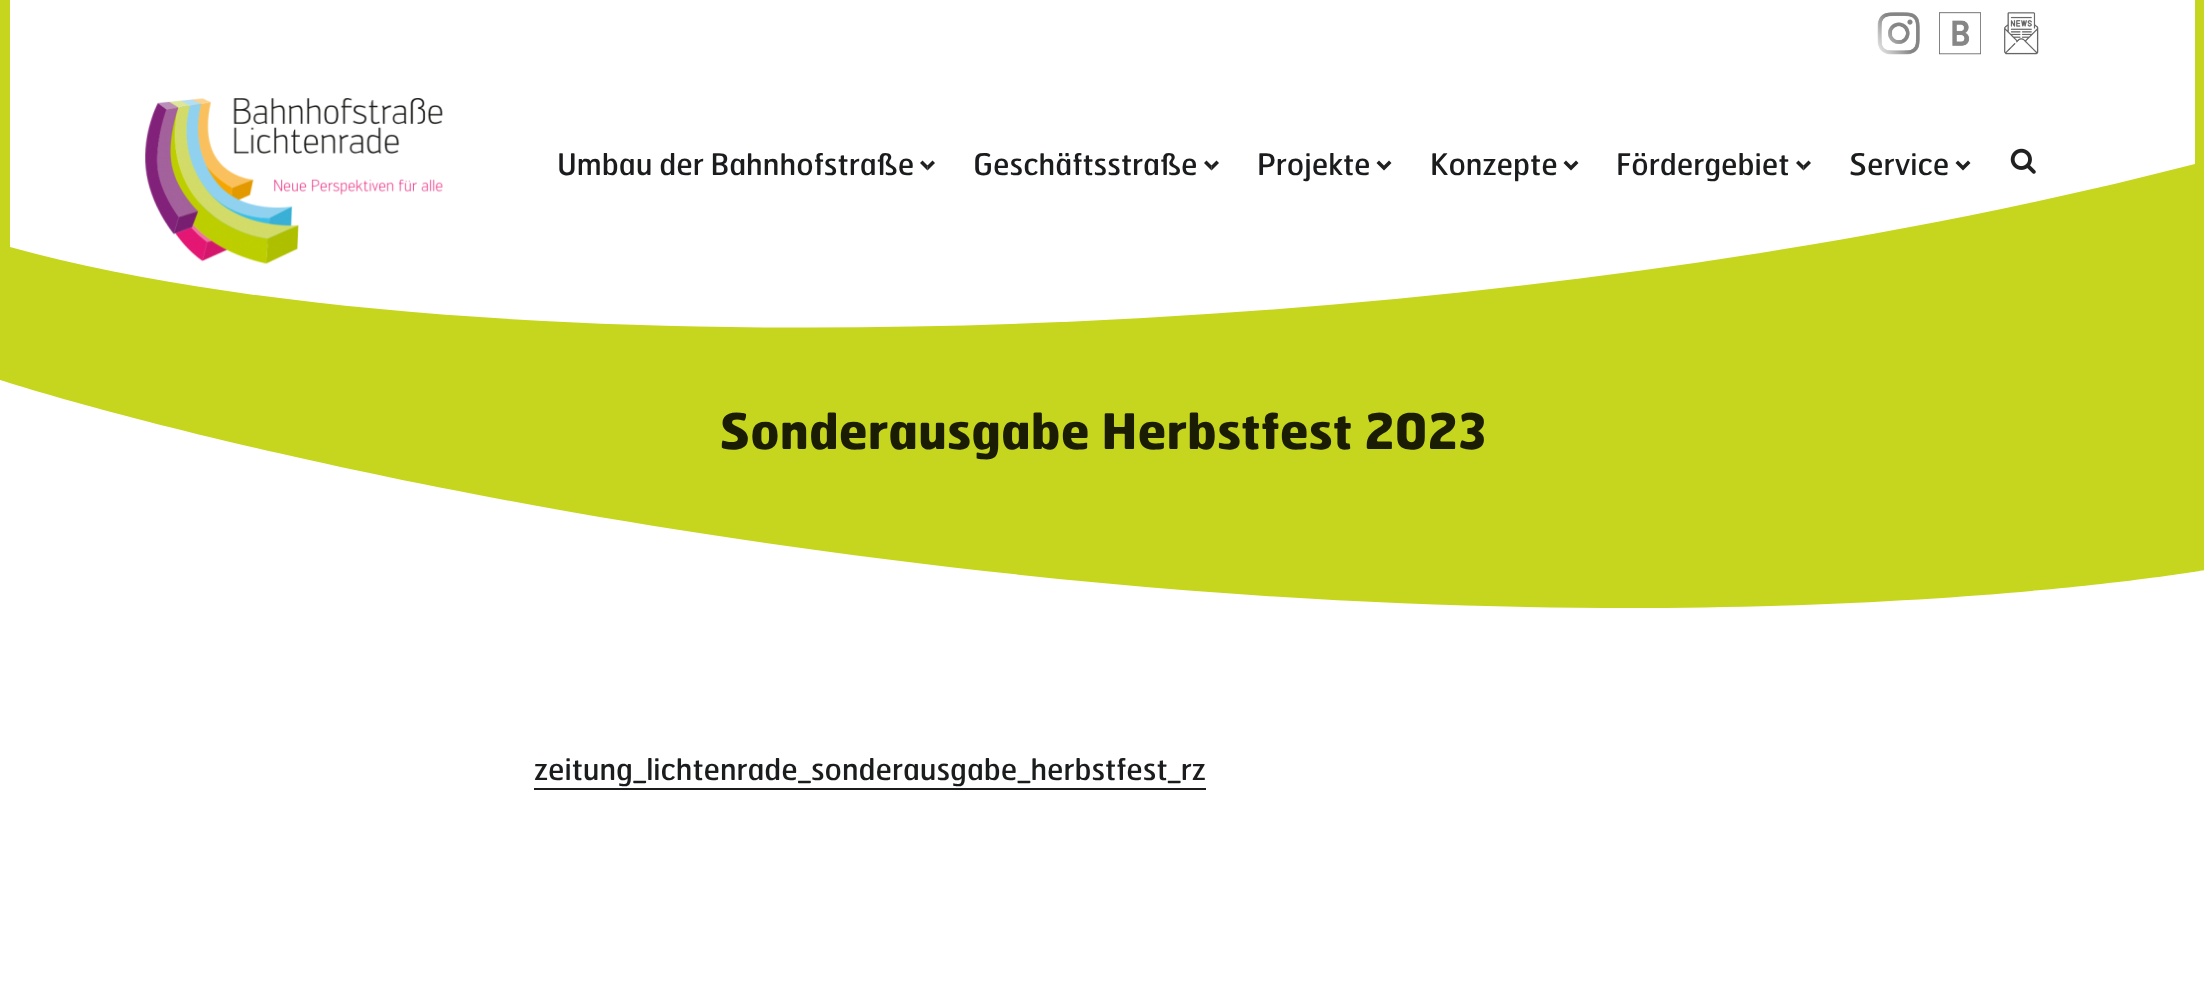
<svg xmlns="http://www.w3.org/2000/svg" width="2204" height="985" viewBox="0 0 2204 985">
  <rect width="100%" height="100%" fill="#fff"/>
  <path d="M0 0h2204v608H0z" fill="#c6d61e"/>
  <path d="M2195 164C1445 357 458 372 10 247V-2H2195Z" fill="#fff" fill-rule="evenodd"/>
  <image x="1877" y="12" width="43" height="43" href="img/1.png"/>
  <image x="1939" y="12" width="42" height="43" href="img/2.png"/>
  <image x="2004" y="12" width="35" height="43" href="img/3.png"/>
  <image x="145" y="98" width="298" height="167" href="img/4.png"/>
  <path d="M935 163L927.5 170.5V165.5L932.5 160.5Z" fill="#212121"/>
  <path d="M927.5 170.5L920 163L922.5 160.5L927.5 165.5Z" fill="#000000de"/>
  <path d="M1219 163L1211.5 170.5V165.5L1216.5 160.5Z" fill="#212121"/>
  <path d="M1211.5 170.5L1204 163L1206.5 160.5L1211.5 165.5Z" fill="#000000de"/>
  <path d="M1391.5 163L1384 170.5V165.5L1389 160.5ZM1384 170.5L1376.5 163L1379 160.5L1384 165.5Z" fill="#212121"/>
  <path d="M1578.5 163L1571 170.5V165.5L1576 160.5ZM1571 170.5L1563.5 163L1566 160.5L1571 165.5Z" fill="#212121"/>
  <path d="M1811 163L1803.5 170.5V165.5L1808.5 160.5Z" fill="#212121"/>
  <path d="M1803.5 170.5L1796 163L1798.5 160.5L1803.5 165.5Z" fill="#000000de"/>
  <path d="M1970.5 163L1963 170.5V165.5L1968 160.5ZM1963 170.5L1955.5 163L1958 160.5L1963 165.5Z" fill="#212121"/>
  <image x="2010" y="148" width="26" height="26" href="img/5.png"/>
  <path d="M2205 619V570C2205 570 1775 646 1102 583C430 520 0 380 0 380V619Z" fill="#fff" fill-rule="evenodd"/>
  <path d="M534 788h672v2H534z" fill="#1b1c1d"/>
  <g font-family="'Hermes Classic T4'" font-size="29.75" fill="#1b1c1d">
    <text x="557" y="175">Umbau der Bahnhofstraße</text>
    <text x="973" y="175">Geschäftsstraße</text>
    <text x="1257" y="175">Projekte</text>
    <text x="1430" y="175">Konzepte</text>
    <text x="1616" y="175">Fördergebiet</text>
    <text x="1849" y="175">Service</text>
  </g>
  <text x="719" y="449" font-family="'Hermes Classic T4'" font-size="49" font-weight="bold" fill="#1a1c04">Sonderausgabe Herbstfest 2023</text>
  <text x="534" y="780" font-family="'Hermes Classic T4'" font-size="29.65" fill="#1b1c1d">zeitung_lichtenrade_sonderausgabe_herbstfest_rz</text>
</svg>
